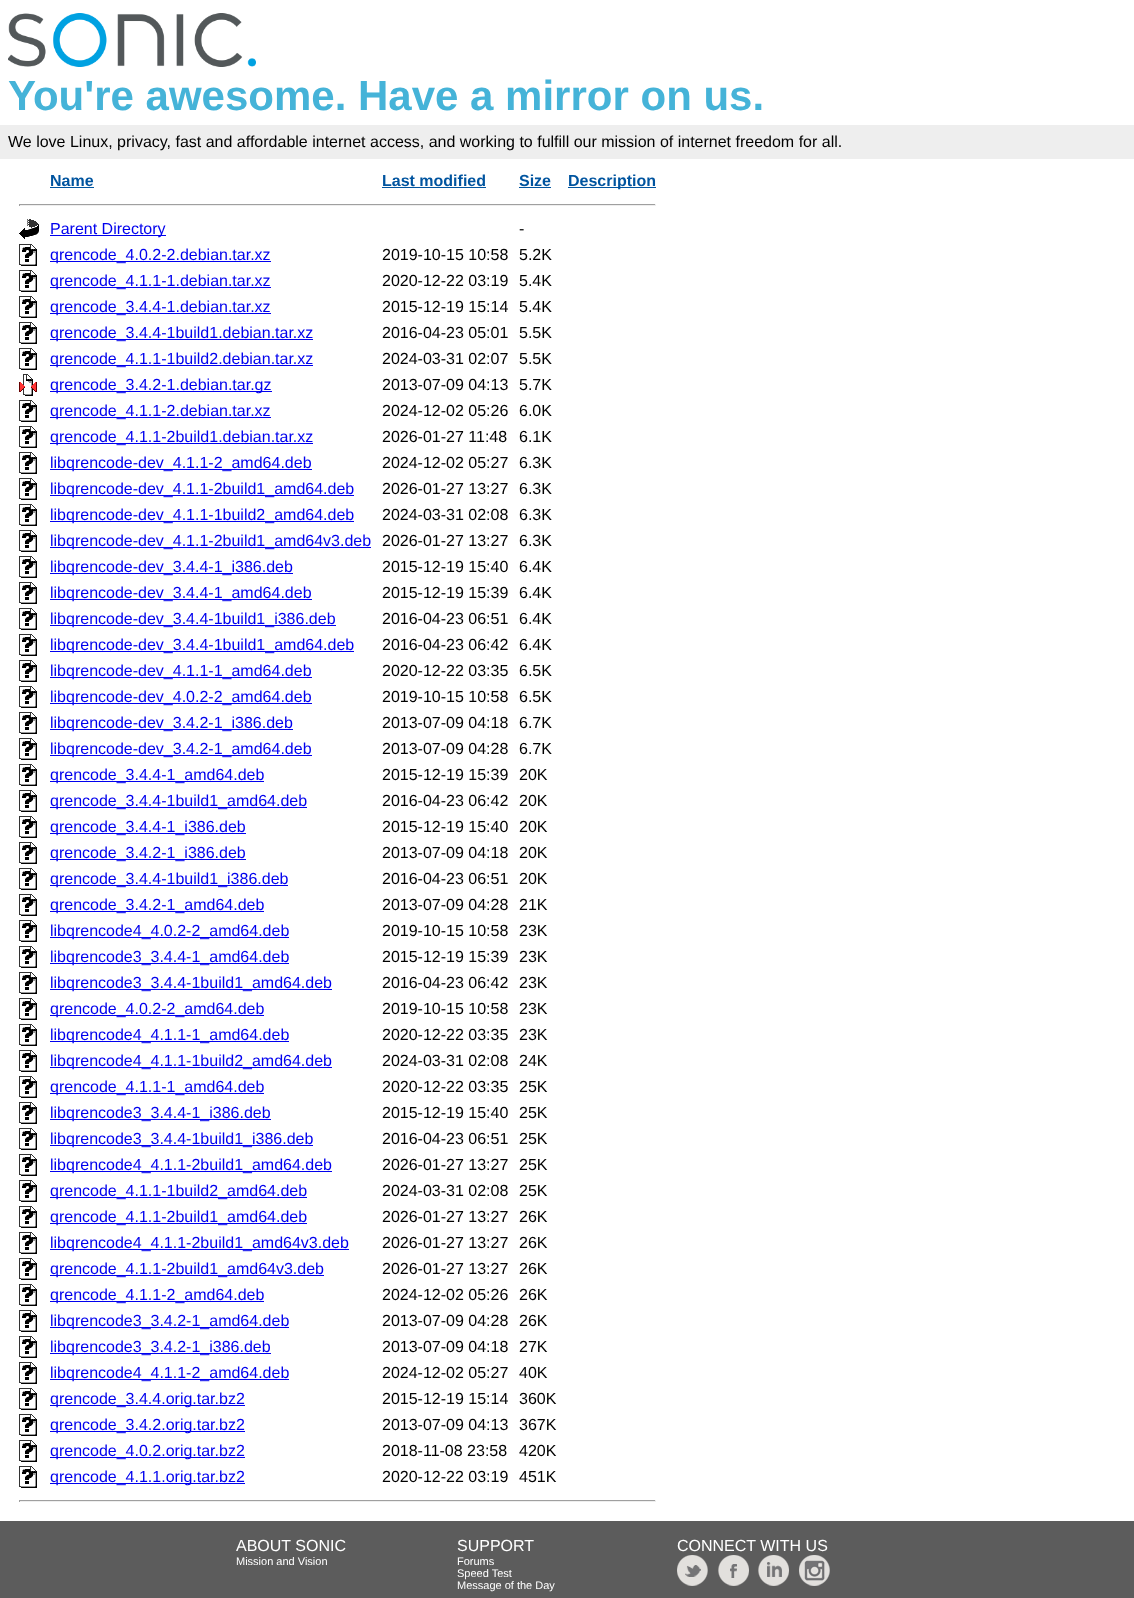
<svg xmlns="http://www.w3.org/2000/svg" width="1134" height="1598" viewBox="0 0 1134 1598">
  <rect width="100%" height="100%" fill="#fff"/>
  <image x="8" y="13" width="248" height="54" href="img/1.png"/>
  <path d="M0 125h1134v34H0z" fill="#eee"/>
  <path d="M50 187h44v1H50z" fill="#00549f"/>
  <path d="M382 187h104v1H382z" fill="#00549f"/>
  <path d="M519 187h32v1H519z" fill="#00549f"/>
  <path d="M568 187h88v1H568z" fill="#00549f"/>
  <path d="M19 204h637v1H19z" fill="#9f9f9f"/>
  <path d="M655 204h1v2H655z" fill="#eee"/>
  <path d="M19 205h637v1H19z" fill="#eee"/>
  <path d="M19 204h1v2H19z" fill="#9f9f9f"/>
  <image x="19" y="219" width="20" height="20" href="img/2.png"/>
  <path d="M50 235h116v1H50z" fill="#00e"/>
  <image x="19" y="244" width="18" height="22" href="img/3.png"/>
  <path d="M50 261h221v1H50z" fill="#00e"/>
  <image x="19" y="270" width="18" height="22" href="img/3.png"/>
  <path d="M50 287h221v1H50z" fill="#00e"/>
  <image x="19" y="296" width="18" height="22" href="img/3.png"/>
  <path d="M50 313h221v1H50z" fill="#00e"/>
  <image x="19" y="322" width="18" height="22" href="img/3.png"/>
  <path d="M50 339h263v1H50z" fill="#00e"/>
  <image x="19" y="348" width="18" height="22" href="img/3.png"/>
  <path d="M50 365h263v1H50z" fill="#00e"/>
  <image x="19" y="374" width="18" height="22" href="img/4.png"/>
  <path d="M50 391h222v1H50z" fill="#00e"/>
  <image x="19" y="400" width="18" height="22" href="img/3.png"/>
  <path d="M50 417h221v1H50z" fill="#00e"/>
  <image x="19" y="426" width="18" height="22" href="img/3.png"/>
  <path d="M50 443h263v1H50z" fill="#00e"/>
  <image x="19" y="452" width="18" height="22" href="img/3.png"/>
  <path d="M50 469h262v1H50z" fill="#00e"/>
  <image x="19" y="478" width="18" height="22" href="img/3.png"/>
  <path d="M50 495h304v1H50z" fill="#00e"/>
  <image x="19" y="504" width="18" height="22" href="img/3.png"/>
  <path d="M50 521h304v1H50z" fill="#00e"/>
  <image x="19" y="530" width="18" height="22" href="img/3.png"/>
  <path d="M50 547h321v1H50z" fill="#00e"/>
  <image x="19" y="556" width="18" height="22" href="img/3.png"/>
  <path d="M50 573h243v1H50z" fill="#00e"/>
  <image x="19" y="582" width="18" height="22" href="img/3.png"/>
  <path d="M50 599h262v1H50z" fill="#00e"/>
  <image x="19" y="608" width="18" height="22" href="img/3.png"/>
  <path d="M50 625h286v1H50z" fill="#00e"/>
  <image x="19" y="634" width="18" height="22" href="img/3.png"/>
  <path d="M50 651h304v1H50z" fill="#00e"/>
  <image x="19" y="660" width="18" height="22" href="img/3.png"/>
  <path d="M50 677h262v1H50z" fill="#00e"/>
  <image x="19" y="686" width="18" height="22" href="img/3.png"/>
  <path d="M50 703h262v1H50z" fill="#00e"/>
  <image x="19" y="712" width="18" height="22" href="img/3.png"/>
  <path d="M50 729h243v1H50z" fill="#00e"/>
  <image x="19" y="738" width="18" height="22" href="img/3.png"/>
  <path d="M50 755h262v1H50z" fill="#00e"/>
  <image x="19" y="764" width="18" height="22" href="img/3.png"/>
  <path d="M50 781h214v1H50z" fill="#00e"/>
  <image x="19" y="790" width="18" height="22" href="img/3.png"/>
  <path d="M50 807h257v1H50z" fill="#00e"/>
  <image x="19" y="816" width="18" height="22" href="img/3.png"/>
  <path d="M50 833h196v1H50z" fill="#00e"/>
  <image x="19" y="842" width="18" height="22" href="img/3.png"/>
  <path d="M50 859h196v1H50z" fill="#00e"/>
  <image x="19" y="868" width="18" height="22" href="img/3.png"/>
  <path d="M50 885h238v1H50z" fill="#00e"/>
  <image x="19" y="894" width="18" height="22" href="img/3.png"/>
  <path d="M50 911h214v1H50z" fill="#00e"/>
  <image x="19" y="920" width="18" height="22" href="img/3.png"/>
  <path d="M50 937h239v1H50z" fill="#00e"/>
  <image x="19" y="946" width="18" height="22" href="img/3.png"/>
  <path d="M50 963h239v1H50z" fill="#00e"/>
  <image x="19" y="972" width="18" height="22" href="img/3.png"/>
  <path d="M50 989h282v1H50z" fill="#00e"/>
  <image x="19" y="998" width="18" height="22" href="img/3.png"/>
  <path d="M50 1015h214v1H50z" fill="#00e"/>
  <image x="19" y="1024" width="18" height="22" href="img/3.png"/>
  <path d="M50 1041h239v1H50z" fill="#00e"/>
  <image x="19" y="1050" width="18" height="22" href="img/3.png"/>
  <path d="M50 1067h282v1H50z" fill="#00e"/>
  <image x="19" y="1076" width="18" height="22" href="img/3.png"/>
  <path d="M50 1093h214v1H50z" fill="#00e"/>
  <image x="19" y="1102" width="18" height="22" href="img/3.png"/>
  <path d="M50 1119h221v1H50z" fill="#00e"/>
  <image x="19" y="1128" width="18" height="22" href="img/3.png"/>
  <path d="M50 1145h263v1H50z" fill="#00e"/>
  <image x="19" y="1154" width="18" height="22" href="img/3.png"/>
  <path d="M50 1171h282v1H50z" fill="#00e"/>
  <image x="19" y="1180" width="18" height="22" href="img/3.png"/>
  <path d="M50 1197h257v1H50z" fill="#00e"/>
  <image x="19" y="1206" width="18" height="22" href="img/3.png"/>
  <path d="M50 1223h257v1H50z" fill="#00e"/>
  <image x="19" y="1232" width="18" height="22" href="img/3.png"/>
  <path d="M50 1249h299v1H50z" fill="#00e"/>
  <image x="19" y="1258" width="18" height="22" href="img/3.png"/>
  <path d="M50 1275h274v1H50z" fill="#00e"/>
  <image x="19" y="1284" width="18" height="22" href="img/3.png"/>
  <path d="M50 1301h214v1H50z" fill="#00e"/>
  <image x="19" y="1310" width="18" height="22" href="img/3.png"/>
  <path d="M50 1327h239v1H50z" fill="#00e"/>
  <image x="19" y="1336" width="18" height="22" href="img/3.png"/>
  <path d="M50 1353h221v1H50z" fill="#00e"/>
  <image x="19" y="1362" width="18" height="22" href="img/3.png"/>
  <path d="M50 1379h239v1H50z" fill="#00e"/>
  <image x="19" y="1388" width="18" height="22" href="img/3.png"/>
  <path d="M50 1405h195v1H50z" fill="#00e"/>
  <image x="19" y="1414" width="18" height="22" href="img/3.png"/>
  <path d="M50 1431h195v1H50z" fill="#00e"/>
  <image x="19" y="1440" width="18" height="22" href="img/3.png"/>
  <path d="M50 1457h195v1H50z" fill="#00e"/>
  <image x="19" y="1466" width="18" height="22" href="img/3.png"/>
  <path d="M50 1483h195v1H50z" fill="#00e"/>
  <path d="M19 1500h637v1H19z" fill="#9f9f9f"/>
  <path d="M655 1500h1v2H655z" fill="#eee"/>
  <path d="M19 1501h637v1H19z" fill="#eee"/>
  <path d="M19 1500h1v2H19z" fill="#9f9f9f"/>
  <path d="M0 1521h1134v77H0z" fill="#5c5c5c"/>
  <image x="677" y="1555" width="31" height="31" href="img/5.png"/>
  <image x="718" y="1555" width="31" height="31" href="img/6.png"/>
  <image x="758" y="1555" width="31" height="31" href="img/7.png"/>
  <image x="799" y="1555" width="31" height="31" href="img/8.png"/>
  <text x="8" y="110" font-family="Liberation Sans" font-size="42" font-weight="bold" fill="#45b3d8">You're awesome. Have a mirror on us.</text>
  <text x="8" y="147" font-family="Liberation Sans" font-size="16" fill="#000">We love Linux, privacy, fast and affordable internet access, and working to fulfill our mission of internet freedom for all.</text>
  <g font-family="Liberation Sans" font-size="16" font-weight="bold" fill="#00549f">
    <text x="50" y="186">Name</text>
    <text x="382" y="186">Last modified</text>
    <text x="519" y="186">Size</text>
    <text x="568" y="186">Description</text>
  </g>
  <text x="50" y="234" font-family="Liberation Sans" font-size="16" fill="#00e">Parent Directory</text>
  <text x="519" y="234" font-family="Liberation Sans" font-size="16" fill="#000">-</text>
  <text x="50" y="260" font-family="Liberation Sans" font-size="16" fill="#00e">qrencode_4.0.2-2.debian.tar.xz</text>
  <g font-family="Liberation Sans" font-size="16" fill="#000">
    <text x="382" y="260">2019-10-15 10:58</text>
    <text x="519" y="260">5.2K</text>
  </g>
  <text x="50" y="286" font-family="Liberation Sans" font-size="16" fill="#00e">qrencode_4.1.1-1.debian.tar.xz</text>
  <g font-family="Liberation Sans" font-size="16" fill="#000">
    <text x="382" y="286">2020-12-22 03:19</text>
    <text x="519" y="286">5.4K</text>
  </g>
  <text x="50" y="312" font-family="Liberation Sans" font-size="16" fill="#00e">qrencode_3.4.4-1.debian.tar.xz</text>
  <g font-family="Liberation Sans" font-size="16" fill="#000">
    <text x="382" y="312">2015-12-19 15:14</text>
    <text x="519" y="312">5.4K</text>
  </g>
  <text x="50" y="338" font-family="Liberation Sans" font-size="16" fill="#00e">qrencode_3.4.4-1build1.debian.tar.xz</text>
  <g font-family="Liberation Sans" font-size="16" fill="#000">
    <text x="382" y="338">2016-04-23 05:01</text>
    <text x="519" y="338">5.5K</text>
  </g>
  <text x="50" y="364" font-family="Liberation Sans" font-size="16" fill="#00e">qrencode_4.1.1-1build2.debian.tar.xz</text>
  <g font-family="Liberation Sans" font-size="16" fill="#000">
    <text x="382" y="364">2024-03-31 02:07</text>
    <text x="519" y="364">5.5K</text>
  </g>
  <text x="50" y="390" font-family="Liberation Sans" font-size="16" fill="#00e">qrencode_3.4.2-1.debian.tar.gz</text>
  <g font-family="Liberation Sans" font-size="16" fill="#000">
    <text x="382" y="390">2013-07-09 04:13</text>
    <text x="519" y="390">5.7K</text>
  </g>
  <text x="50" y="416" font-family="Liberation Sans" font-size="16" fill="#00e">qrencode_4.1.1-2.debian.tar.xz</text>
  <g font-family="Liberation Sans" font-size="16" fill="#000">
    <text x="382" y="416">2024-12-02 05:26</text>
    <text x="519" y="416">6.0K</text>
  </g>
  <text x="50" y="442" font-family="Liberation Sans" font-size="16" fill="#00e">qrencode_4.1.1-2build1.debian.tar.xz</text>
  <g font-family="Liberation Sans" font-size="16" fill="#000">
    <text x="382" y="442">2026-01-27 11:48</text>
    <text x="519" y="442">6.1K</text>
  </g>
  <text x="50" y="468" font-family="Liberation Sans" font-size="16" fill="#00e">libqrencode-dev_4.1.1-2_amd64.deb</text>
  <g font-family="Liberation Sans" font-size="16" fill="#000">
    <text x="382" y="468">2024-12-02 05:27</text>
    <text x="519" y="468">6.3K</text>
  </g>
  <text x="50" y="494" font-family="Liberation Sans" font-size="16" fill="#00e">libqrencode-dev_4.1.1-2build1_amd64.deb</text>
  <g font-family="Liberation Sans" font-size="16" fill="#000">
    <text x="382" y="494">2026-01-27 13:27</text>
    <text x="519" y="494">6.3K</text>
  </g>
  <text x="50" y="520" font-family="Liberation Sans" font-size="16" fill="#00e">libqrencode-dev_4.1.1-1build2_amd64.deb</text>
  <g font-family="Liberation Sans" font-size="16" fill="#000">
    <text x="382" y="520">2024-03-31 02:08</text>
    <text x="519" y="520">6.3K</text>
  </g>
  <text x="50" y="546" font-family="Liberation Sans" font-size="16" fill="#00e">libqrencode-dev_4.1.1-2build1_amd64v3.deb</text>
  <g font-family="Liberation Sans" font-size="16" fill="#000">
    <text x="382" y="546">2026-01-27 13:27</text>
    <text x="519" y="546">6.3K</text>
  </g>
  <text x="50" y="572" font-family="Liberation Sans" font-size="16" fill="#00e">libqrencode-dev_3.4.4-1_i386.deb</text>
  <g font-family="Liberation Sans" font-size="16" fill="#000">
    <text x="382" y="572">2015-12-19 15:40</text>
    <text x="519" y="572">6.4K</text>
  </g>
  <text x="50" y="598" font-family="Liberation Sans" font-size="16" fill="#00e">libqrencode-dev_3.4.4-1_amd64.deb</text>
  <g font-family="Liberation Sans" font-size="16" fill="#000">
    <text x="382" y="598">2015-12-19 15:39</text>
    <text x="519" y="598">6.4K</text>
  </g>
  <text x="50" y="624" font-family="Liberation Sans" font-size="16" fill="#00e">libqrencode-dev_3.4.4-1build1_i386.deb</text>
  <g font-family="Liberation Sans" font-size="16" fill="#000">
    <text x="382" y="624">2016-04-23 06:51</text>
    <text x="519" y="624">6.4K</text>
  </g>
  <text x="50" y="650" font-family="Liberation Sans" font-size="16" fill="#00e">libqrencode-dev_3.4.4-1build1_amd64.deb</text>
  <g font-family="Liberation Sans" font-size="16" fill="#000">
    <text x="382" y="650">2016-04-23 06:42</text>
    <text x="519" y="650">6.4K</text>
  </g>
  <text x="50" y="676" font-family="Liberation Sans" font-size="16" fill="#00e">libqrencode-dev_4.1.1-1_amd64.deb</text>
  <g font-family="Liberation Sans" font-size="16" fill="#000">
    <text x="382" y="676">2020-12-22 03:35</text>
    <text x="519" y="676">6.5K</text>
  </g>
  <text x="50" y="702" font-family="Liberation Sans" font-size="16" fill="#00e">libqrencode-dev_4.0.2-2_amd64.deb</text>
  <g font-family="Liberation Sans" font-size="16" fill="#000">
    <text x="382" y="702">2019-10-15 10:58</text>
    <text x="519" y="702">6.5K</text>
  </g>
  <text x="50" y="728" font-family="Liberation Sans" font-size="16" fill="#00e">libqrencode-dev_3.4.2-1_i386.deb</text>
  <g font-family="Liberation Sans" font-size="16" fill="#000">
    <text x="382" y="728">2013-07-09 04:18</text>
    <text x="519" y="728">6.7K</text>
  </g>
  <text x="50" y="754" font-family="Liberation Sans" font-size="16" fill="#00e">libqrencode-dev_3.4.2-1_amd64.deb</text>
  <g font-family="Liberation Sans" font-size="16" fill="#000">
    <text x="382" y="754">2013-07-09 04:28</text>
    <text x="519" y="754">6.7K</text>
  </g>
  <text x="50" y="780" font-family="Liberation Sans" font-size="16" fill="#00e">qrencode_3.4.4-1_amd64.deb</text>
  <g font-family="Liberation Sans" font-size="16" fill="#000">
    <text x="382" y="780">2015-12-19 15:39</text>
    <text x="519" y="780">20K</text>
  </g>
  <text x="50" y="806" font-family="Liberation Sans" font-size="16" fill="#00e">qrencode_3.4.4-1build1_amd64.deb</text>
  <g font-family="Liberation Sans" font-size="16" fill="#000">
    <text x="382" y="806">2016-04-23 06:42</text>
    <text x="519" y="806">20K</text>
  </g>
  <text x="50" y="832" font-family="Liberation Sans" font-size="16" fill="#00e">qrencode_3.4.4-1_i386.deb</text>
  <g font-family="Liberation Sans" font-size="16" fill="#000">
    <text x="382" y="832">2015-12-19 15:40</text>
    <text x="519" y="832">20K</text>
  </g>
  <text x="50" y="858" font-family="Liberation Sans" font-size="16" fill="#00e">qrencode_3.4.2-1_i386.deb</text>
  <g font-family="Liberation Sans" font-size="16" fill="#000">
    <text x="382" y="858">2013-07-09 04:18</text>
    <text x="519" y="858">20K</text>
  </g>
  <text x="50" y="884" font-family="Liberation Sans" font-size="16" fill="#00e">qrencode_3.4.4-1build1_i386.deb</text>
  <g font-family="Liberation Sans" font-size="16" fill="#000">
    <text x="382" y="884">2016-04-23 06:51</text>
    <text x="519" y="884">20K</text>
  </g>
  <text x="50" y="910" font-family="Liberation Sans" font-size="16" fill="#00e">qrencode_3.4.2-1_amd64.deb</text>
  <g font-family="Liberation Sans" font-size="16" fill="#000">
    <text x="382" y="910">2013-07-09 04:28</text>
    <text x="519" y="910">21K</text>
  </g>
  <text x="50" y="936" font-family="Liberation Sans" font-size="16" fill="#00e">libqrencode4_4.0.2-2_amd64.deb</text>
  <g font-family="Liberation Sans" font-size="16" fill="#000">
    <text x="382" y="936">2019-10-15 10:58</text>
    <text x="519" y="936">23K</text>
  </g>
  <text x="50" y="962" font-family="Liberation Sans" font-size="16" fill="#00e">libqrencode3_3.4.4-1_amd64.deb</text>
  <g font-family="Liberation Sans" font-size="16" fill="#000">
    <text x="382" y="962">2015-12-19 15:39</text>
    <text x="519" y="962">23K</text>
  </g>
  <text x="50" y="988" font-family="Liberation Sans" font-size="16" fill="#00e">libqrencode3_3.4.4-1build1_amd64.deb</text>
  <g font-family="Liberation Sans" font-size="16" fill="#000">
    <text x="382" y="988">2016-04-23 06:42</text>
    <text x="519" y="988">23K</text>
  </g>
  <text x="50" y="1014" font-family="Liberation Sans" font-size="16" fill="#00e">qrencode_4.0.2-2_amd64.deb</text>
  <g font-family="Liberation Sans" font-size="16" fill="#000">
    <text x="382" y="1014">2019-10-15 10:58</text>
    <text x="519" y="1014">23K</text>
  </g>
  <text x="50" y="1040" font-family="Liberation Sans" font-size="16" fill="#00e">libqrencode4_4.1.1-1_amd64.deb</text>
  <g font-family="Liberation Sans" font-size="16" fill="#000">
    <text x="382" y="1040">2020-12-22 03:35</text>
    <text x="519" y="1040">23K</text>
  </g>
  <text x="50" y="1066" font-family="Liberation Sans" font-size="16" fill="#00e">libqrencode4_4.1.1-1build2_amd64.deb</text>
  <g font-family="Liberation Sans" font-size="16" fill="#000">
    <text x="382" y="1066">2024-03-31 02:08</text>
    <text x="519" y="1066">24K</text>
  </g>
  <text x="50" y="1092" font-family="Liberation Sans" font-size="16" fill="#00e">qrencode_4.1.1-1_amd64.deb</text>
  <g font-family="Liberation Sans" font-size="16" fill="#000">
    <text x="382" y="1092">2020-12-22 03:35</text>
    <text x="519" y="1092">25K</text>
  </g>
  <text x="50" y="1118" font-family="Liberation Sans" font-size="16" fill="#00e">libqrencode3_3.4.4-1_i386.deb</text>
  <g font-family="Liberation Sans" font-size="16" fill="#000">
    <text x="382" y="1118">2015-12-19 15:40</text>
    <text x="519" y="1118">25K</text>
  </g>
  <text x="50" y="1144" font-family="Liberation Sans" font-size="16" fill="#00e">libqrencode3_3.4.4-1build1_i386.deb</text>
  <g font-family="Liberation Sans" font-size="16" fill="#000">
    <text x="382" y="1144">2016-04-23 06:51</text>
    <text x="519" y="1144">25K</text>
  </g>
  <text x="50" y="1170" font-family="Liberation Sans" font-size="16" fill="#00e">libqrencode4_4.1.1-2build1_amd64.deb</text>
  <g font-family="Liberation Sans" font-size="16" fill="#000">
    <text x="382" y="1170">2026-01-27 13:27</text>
    <text x="519" y="1170">25K</text>
  </g>
  <text x="50" y="1196" font-family="Liberation Sans" font-size="16" fill="#00e">qrencode_4.1.1-1build2_amd64.deb</text>
  <g font-family="Liberation Sans" font-size="16" fill="#000">
    <text x="382" y="1196">2024-03-31 02:08</text>
    <text x="519" y="1196">25K</text>
  </g>
  <text x="50" y="1222" font-family="Liberation Sans" font-size="16" fill="#00e">qrencode_4.1.1-2build1_amd64.deb</text>
  <g font-family="Liberation Sans" font-size="16" fill="#000">
    <text x="382" y="1222">2026-01-27 13:27</text>
    <text x="519" y="1222">26K</text>
  </g>
  <text x="50" y="1248" font-family="Liberation Sans" font-size="16" fill="#00e">libqrencode4_4.1.1-2build1_amd64v3.deb</text>
  <g font-family="Liberation Sans" font-size="16" fill="#000">
    <text x="382" y="1248">2026-01-27 13:27</text>
    <text x="519" y="1248">26K</text>
  </g>
  <text x="50" y="1274" font-family="Liberation Sans" font-size="16" fill="#00e">qrencode_4.1.1-2build1_amd64v3.deb</text>
  <g font-family="Liberation Sans" font-size="16" fill="#000">
    <text x="382" y="1274">2026-01-27 13:27</text>
    <text x="519" y="1274">26K</text>
  </g>
  <text x="50" y="1300" font-family="Liberation Sans" font-size="16" fill="#00e">qrencode_4.1.1-2_amd64.deb</text>
  <g font-family="Liberation Sans" font-size="16" fill="#000">
    <text x="382" y="1300">2024-12-02 05:26</text>
    <text x="519" y="1300">26K</text>
  </g>
  <text x="50" y="1326" font-family="Liberation Sans" font-size="16" fill="#00e">libqrencode3_3.4.2-1_amd64.deb</text>
  <g font-family="Liberation Sans" font-size="16" fill="#000">
    <text x="382" y="1326">2013-07-09 04:28</text>
    <text x="519" y="1326">26K</text>
  </g>
  <text x="50" y="1352" font-family="Liberation Sans" font-size="16" fill="#00e">libqrencode3_3.4.2-1_i386.deb</text>
  <g font-family="Liberation Sans" font-size="16" fill="#000">
    <text x="382" y="1352">2013-07-09 04:18</text>
    <text x="519" y="1352">27K</text>
  </g>
  <text x="50" y="1378" font-family="Liberation Sans" font-size="16" fill="#00e">libqrencode4_4.1.1-2_amd64.deb</text>
  <g font-family="Liberation Sans" font-size="16" fill="#000">
    <text x="382" y="1378">2024-12-02 05:27</text>
    <text x="519" y="1378">40K</text>
  </g>
  <text x="50" y="1404" font-family="Liberation Sans" font-size="16" fill="#00e">qrencode_3.4.4.orig.tar.bz2</text>
  <g font-family="Liberation Sans" font-size="16" fill="#000">
    <text x="382" y="1404">2015-12-19 15:14</text>
    <text x="519" y="1404">360K</text>
  </g>
  <text x="50" y="1430" font-family="Liberation Sans" font-size="16" fill="#00e">qrencode_3.4.2.orig.tar.bz2</text>
  <g font-family="Liberation Sans" font-size="16" fill="#000">
    <text x="382" y="1430">2013-07-09 04:13</text>
    <text x="519" y="1430">367K</text>
  </g>
  <text x="50" y="1456" font-family="Liberation Sans" font-size="16" fill="#00e">qrencode_4.0.2.orig.tar.bz2</text>
  <g font-family="Liberation Sans" font-size="16" fill="#000">
    <text x="382" y="1456">2018-11-08 23:58</text>
    <text x="519" y="1456">420K</text>
  </g>
  <text x="50" y="1482" font-family="Liberation Sans" font-size="16" fill="#00e">qrencode_4.1.1.orig.tar.bz2</text>
  <g font-family="Liberation Sans" font-size="16" fill="#000">
    <text x="382" y="1482">2020-12-22 03:19</text>
    <text x="519" y="1482">451K</text>
  </g>
  <text x="236" y="1551" font-family="Liberation Sans" font-size="16" fill="#fff">ABOUT SONIC</text>
  <text x="236" y="1565" font-family="Liberation Sans" font-size="11" fill="#fff">Mission and Vision</text>
  <text x="457" y="1551" font-family="Liberation Sans" font-size="16" fill="#fff">SUPPORT</text>
  <g font-family="Liberation Sans" font-size="11" fill="#fff">
    <text x="457" y="1565">Forums</text>
    <text x="457" y="1577">Speed Test</text>
    <text x="457" y="1589">Message of the Day</text>
  </g>
  <text x="677" y="1551" font-family="Liberation Sans" font-size="16" fill="#fff">CONNECT WITH US</text>
</svg>
